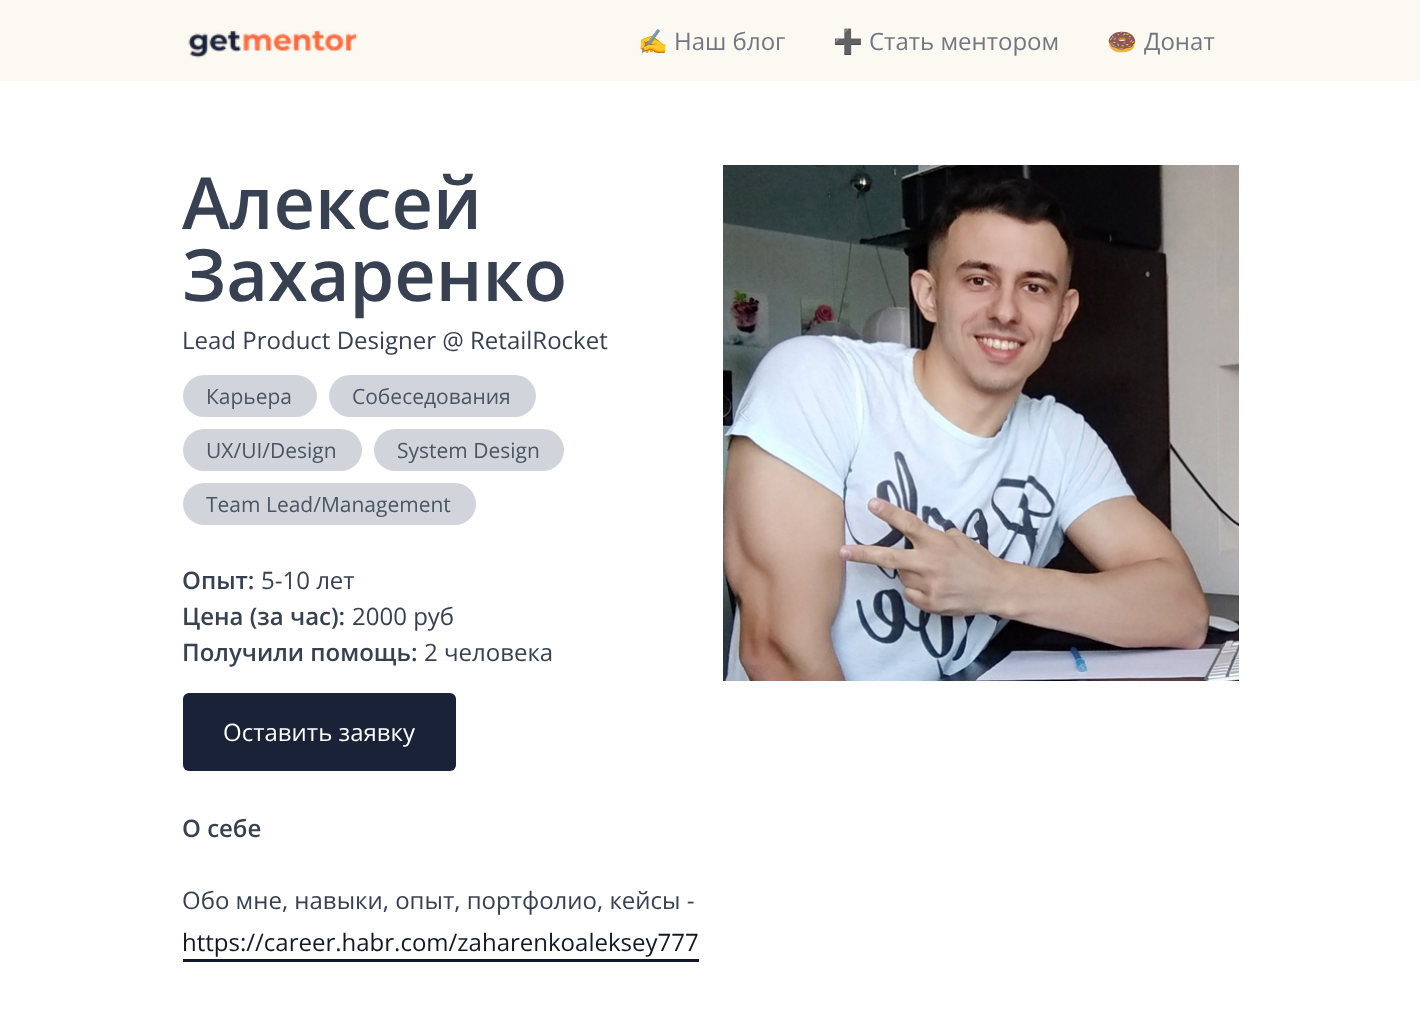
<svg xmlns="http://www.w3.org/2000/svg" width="1420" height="1016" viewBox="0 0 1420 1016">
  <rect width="100%" height="100%" fill="#fff"/>
  <path d="M0 0h1420v81H0z" fill="#fcf8f2"/>
  <image x="188" y="30" width="170" height="28" href="img/1.png"/>
  <rect x="183" y="375" width="134" height="42" rx="21" fill="#d1d5db"/>
  <rect x="329" y="375" width="207" height="42" rx="21" fill="#d1d5db"/>
  <rect x="183" y="429" width="179" height="42" rx="21" fill="#d1d5db"/>
  <rect x="374" y="429" width="190" height="42" rx="21" fill="#d1d5db"/>
  <rect x="183" y="483" width="293" height="42" rx="21" fill="#d1d5db"/>
  <rect x="183" y="693" width="273" height="78" rx="6" fill="#1a2238"/>
  <path d="M183 959h516v3H183z" fill="#111827"/>
  <image x="723" y="165" width="516" height="516" href="img/2.png"/>
  <text x="638" y="50" font-family="Noto Color Emoji" font-size="24" fill="#727881">✍️</text>
  <text x="674" y="50" font-family="Open Sans" font-size="24" fill="#727881">Наш блог</text>
  <text x="833" y="50" font-family="Noto Color Emoji" font-size="24" fill="#727881">➕</text>
  <text x="869" y="50" font-family="Open Sans" font-size="24" fill="#727881">Стать ментором</text>
  <text x="1107" y="50" font-family="Noto Color Emoji" font-size="24" fill="#727881">🍩</text>
  <text x="1144" y="50" font-family="Open Sans" font-size="24" fill="#727881">Донат</text>
  <g font-family="Open Sans" font-size="72" font-weight="600" fill="#374151">
    <text x="182" y="229">Алексей</text>
    <text x="182" y="301">Захаренко</text>
  </g>
  <text x="182" y="349" font-family="Open Sans" font-size="24" fill="#374151">Lead Product Designer @ RetailRocket</text>
  <g font-family="Open Sans" font-size="21" fill="#4b5563">
    <text x="206" y="404">Карьера</text>
    <text x="352" y="404">Собеседования</text>
    <text x="206" y="458">UX/UI/Design</text>
    <text x="397" y="458">System Design</text>
    <text x="206" y="512">Team Lead/Management</text>
  </g>
  <text x="182" y="589" font-family="Open Sans" font-size="24" font-weight="600" fill="#374151">Опыт:</text>
  <text x="261" y="589" font-family="Open Sans" font-size="24" fill="#374151">5-10 лет</text>
  <text x="182" y="625" font-family="Open Sans" font-size="24" font-weight="600" fill="#374151">Цена (за час):</text>
  <text x="352" y="625" font-family="Open Sans" font-size="24" fill="#374151">2000 руб</text>
  <text x="182" y="661" font-family="Open Sans" font-size="24" font-weight="600" fill="#374151">Получили помощь:</text>
  <text x="424" y="661" font-family="Open Sans" font-size="24" fill="#374151">2 человека</text>
  <text x="223" y="741" font-family="Open Sans" font-size="24" fill="#fff">Оставить заявку</text>
  <text x="182" y="837" font-family="Open Sans" font-size="24" font-weight="600" fill="#374151">О себе</text>
  <text x="182" y="909" font-family="Open Sans" font-size="24" fill="#374151">Обо мне, навыки, опыт, портфолио, кейсы -</text>
  <text x="182" y="951" font-family="Open Sans" font-size="24" fill="#111827">https://career.habr.com/zaharenkoaleksey777</text>
</svg>
